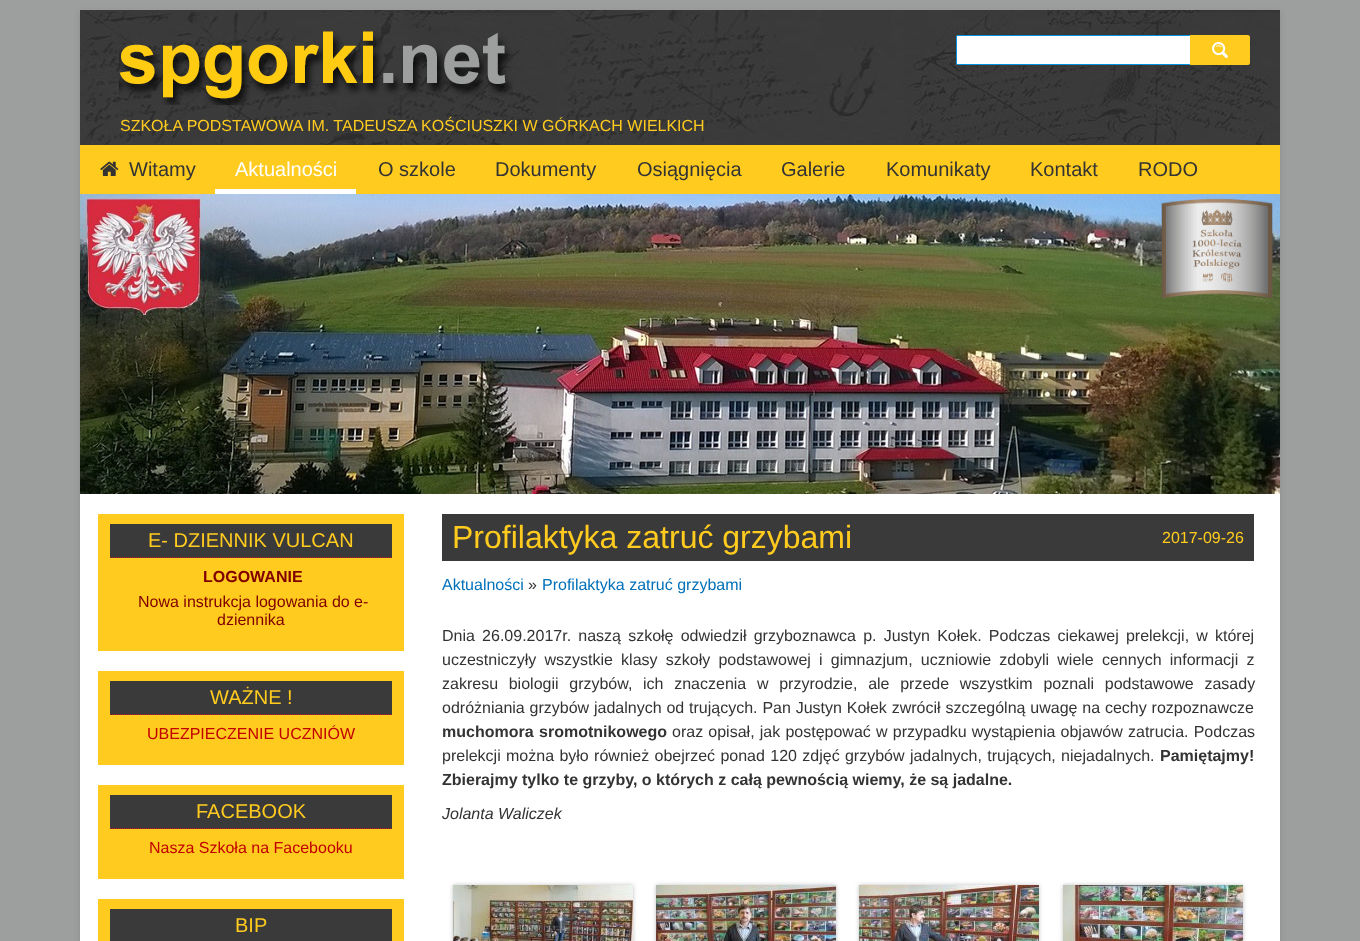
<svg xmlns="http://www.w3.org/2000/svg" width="1360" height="941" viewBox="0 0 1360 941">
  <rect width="100%" height="100%" fill="#9d9e9e"/>
  <path d="M80 12h1200v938H80z" fill="#6464644d" filter="blur(3px)"/>
  <path d="M80 494h1200v447H80z" fill="#fff"/>
  <image x="80" y="10" width="1200" height="135" href="img/1.png"/>
  <path d="M958 35H1190V65H958C957 65 956 64 956 63V37C956 36 957 35 958 35Z" fill="#fff"/>
  <path d="M957 35h233v1H957z" fill="#0093dd"/>
  <path d="M957 64h233v1H957z" fill="#0093dd"/>
  <path d="M956 36h1v28H956z" fill="#0093dd"/>
  <path d="M1190 35H1248C1249 35 1250 36 1250 37V63C1250 64 1249 65 1248 65H1190Z" fill="#ffcb1f"/>
  <image x="1212" y="42" width="16" height="16" href="img/2.png"/>
  <image x="119" y="31" width="394" height="74" href="img/3.png"/>
  <path d="M80 145h1200v49H80z" fill="#ffcb1f"/>
  <image x="100" y="161" width="19" height="15" href="img/4.png"/>
  <path d="M215 189h141v5H215z" fill="#fff"/>
  <image x="80" y="194" width="1200" height="300" href="img/5.png"/>
  <path d="M98 514h306v137H98z" fill="#ffcb1f"/>
  <path d="M110 524h282v34H110z" fill="#3a3a3a"/>
  <path d="M110 557.5H392" fill="none" stroke="#cc1426" stroke-dasharray="1 1"/>
  <path d="M98 671h306v94H98z" fill="#ffcb1f"/>
  <path d="M110 681h282v34H110z" fill="#3a3a3a"/>
  <path d="M110 714.5H392" fill="none" stroke="#cc1426" stroke-dasharray="1 1"/>
  <path d="M98 785h306v94H98z" fill="#ffcb1f"/>
  <path d="M110 795h282v34H110z" fill="#3a3a3a"/>
  <path d="M110 828.5H392" fill="none" stroke="#cc1426" stroke-dasharray="1 1"/>
  <path d="M98 899h306v42H98z" fill="#ffcb1f"/>
  <path d="M110 909h282v32H110z" fill="#3a3a3a"/>
  <path d="M442 514h812v47H442z" fill="#3a3a3a"/>
  <path d="M453 885h180v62H453z" fill="#64646466" filter="blur(2px)"/>
  <image x="453" y="885" width="180" height="56" href="img/6.png"/>
  <path d="M656 885h180v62H656z" fill="#64646466" filter="blur(2px)"/>
  <image x="656" y="885" width="180" height="56" href="img/7.png"/>
  <path d="M859 885h180v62H859z" fill="#64646466" filter="blur(2px)"/>
  <image x="859" y="885" width="180" height="56" href="img/8.png"/>
  <path d="M1063 885h180v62H1063z" fill="#64646466" filter="blur(2px)"/>
  <image x="1063" y="885" width="180" height="56" href="img/9.png"/>
  <text x="120" y="131" font-family="Liberation Sans" font-size="16" fill="#ffcb1f">SZKOŁA PODSTAWOWA IM. TADEUSZA KOŚCIUSZKI W GÓRKACH WIELKICH</text>
  <text x="129" y="176" font-family="Liberation Sans" font-size="20" fill="#333">Witamy</text>
  <text x="235" y="176" font-family="Liberation Sans" font-size="20" fill="#fff">Aktualności</text>
  <g font-family="Liberation Sans" font-size="20" fill="#333">
    <text x="378" y="176">O szkole</text>
    <text x="495" y="176">Dokumenty</text>
    <text x="637" y="176">Osiągnięcia</text>
    <text x="781" y="176">Galerie</text>
    <text x="886" y="176">Komunikaty</text>
    <text x="1030" y="176">Kontakt</text>
    <text x="1138" y="176">RODO</text>
  </g>
  <text x="148" y="547" font-family="Liberation Sans" font-size="20" fill="#ffcb1f">E- DZIENNIK VULCAN</text>
  <text x="203" y="582" font-family="Liberation Sans" font-size="16" font-weight="bold" fill="#800000">LOGOWANIE</text>
  <g font-family="Liberation Sans" font-size="16" fill="#800000">
    <text x="138" y="607">Nowa instrukcja logowania do e-</text>
    <text x="217" y="625">dziennika</text>
  </g>
  <text x="210" y="704" font-family="Liberation Sans" font-size="20" fill="#ffcb1f">WAŻNE !</text>
  <text x="147" y="739" font-family="Liberation Sans" font-size="16" fill="#c10000">UBEZPIECZENIE UCZNIÓW</text>
  <text x="196" y="818" font-family="Liberation Sans" font-size="20" fill="#ffcb1f">FACEBOOK</text>
  <text x="149" y="853" font-family="Liberation Sans" font-size="16" fill="#c10000">Nasza Szkoła na Facebooku</text>
  <text x="235" y="932" font-family="Liberation Sans" font-size="20" fill="#ffcb1f">BIP</text>
  <text x="452" y="548" font-family="Liberation Sans" font-size="32" fill="#ffcb1f">Profilaktyka zatruć grzybami</text>
  <text x="1162" y="543" font-family="Liberation Sans" font-size="16" fill="#ffcb1f">2017-09-26</text>
  <text x="442" y="590" font-family="Liberation Sans" font-size="16" fill="#0070b8">Aktualności</text>
  <text x="528" y="590" font-family="Liberation Sans" font-size="16" fill="#333">»</text>
  <text x="542" y="590" font-family="Liberation Sans" font-size="16" fill="#0070b8">Profilaktyka zatruć grzybami</text>
  <g font-family="Liberation Sans" font-size="16" fill="#333">
    <text x="442" y="641" word-spacing="2.75">Dnia 26.09.2017r. naszą szkołę odwiedził grzyboznawca p. Justyn Kołek. Podczas ciekawej prelekcji, w której</text>
    <text x="442" y="665" word-spacing="3.75">uczestniczyły wszystkie klasy szkoły podstawowej i gimnazjum, uczniowie zdobyli wiele cennych informacji z</text>
    <text x="442" y="689" word-spacing="6.25">zakresu biologii grzybów, ich znaczenia w przyrodzie, ale przede wszystkim poznali podstawowe zasady</text>
    <text x="442" y="713" word-spacing="0.4">odróżniania grzybów jadalnych od trujących. Pan Justyn Kołek zwrócił szczególną uwagę na cechy rozpoznawcze</text>
  </g>
  <text x="442" y="737" word-spacing="1" font-family="Liberation Sans" font-size="16" font-weight="bold" fill="#333">muchomora sromotnikowego</text>
  <g font-family="Liberation Sans" font-size="16" fill="#333">
    <text x="672" y="737" word-spacing="0.75">oraz opisał, jak postępować w przypadku wystąpienia objawów zatrucia. Podczas</text>
    <text x="442" y="761" word-spacing="0.9">prelekcji można było również obejrzeć ponad 120 zdjęć grzybów jadalnych, trujących, niejadalnych.</text>
  </g>
  <g font-family="Liberation Sans" font-size="16" font-weight="bold" fill="#333">
    <text x="1160" y="761">Pamiętajmy!</text>
    <text x="442" y="785">Zbierajmy tylko te grzyby, o których z całą pewnością wiemy, że są jadalne.</text>
  </g>
  <text x="442" y="819" font-family="Liberation Sans" font-size="16" font-style="italic" fill="#333">Jolanta Waliczek</text>
</svg>
